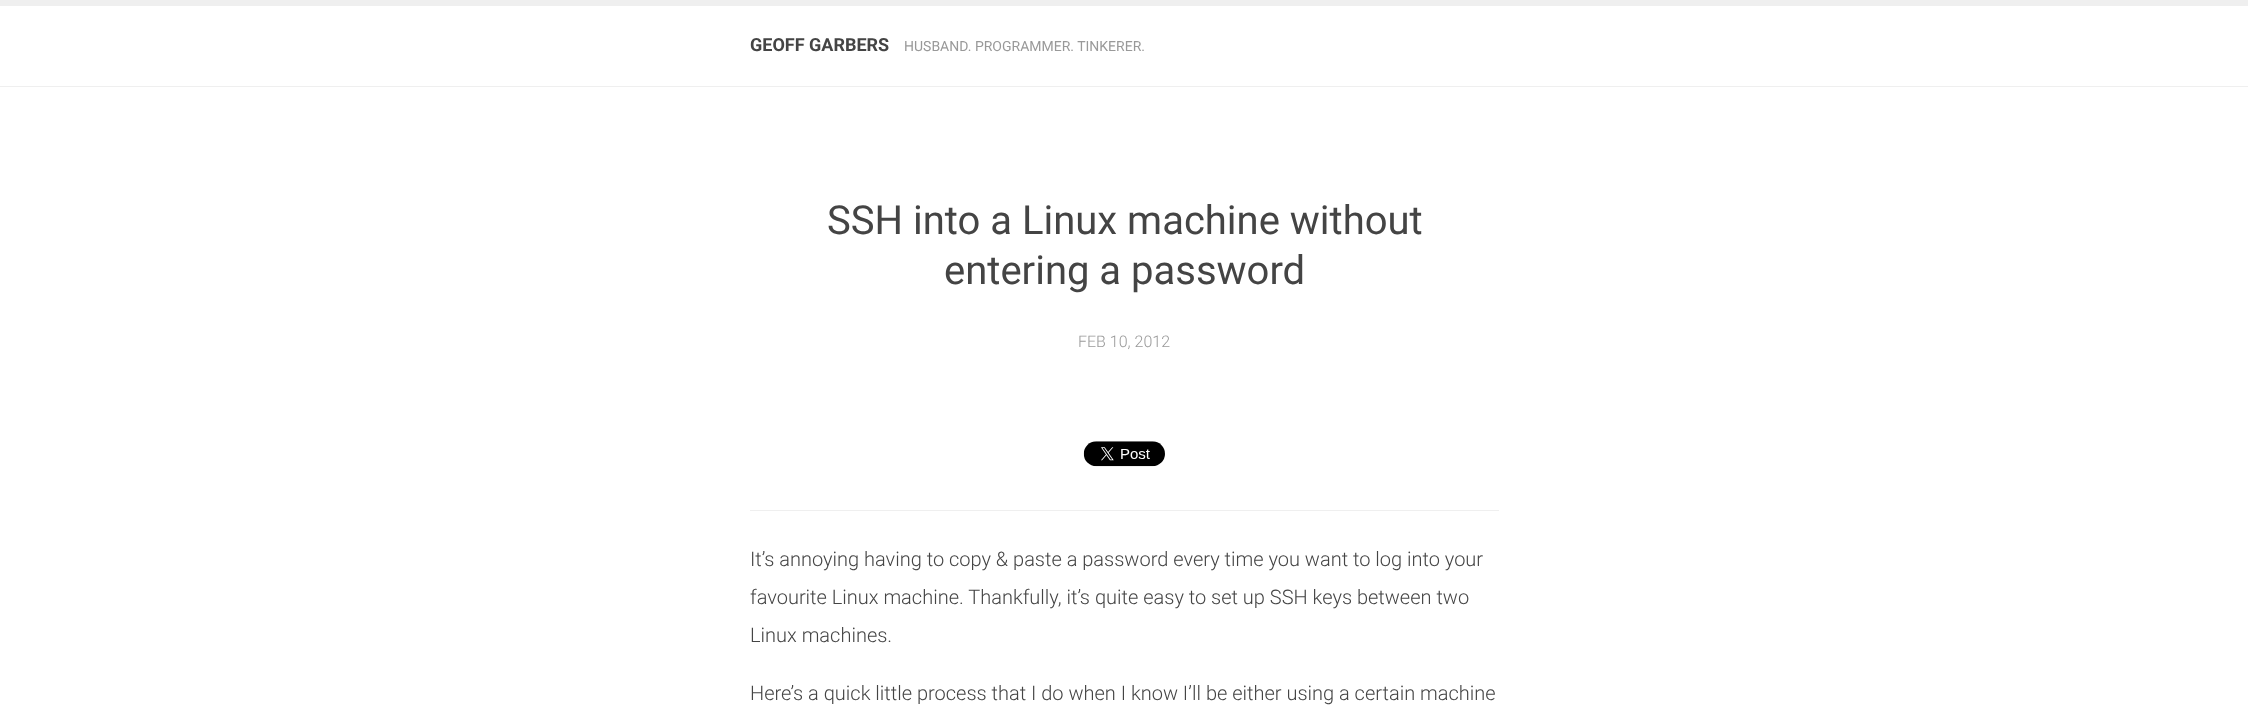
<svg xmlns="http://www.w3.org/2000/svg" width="2248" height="714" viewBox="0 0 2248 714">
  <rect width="100%" height="100%" fill="#fff"/>
  <path d="M0 0h2248v6H0z" fill="#efefef"/>
  <path d="M0 86h2248v1H0z" fill="#efefef"/>
  <image x="1083" y="441" width="82" height="26" href="img/1.png"/>
  <path d="M750 510h749v1H750z" fill="#efefef"/>
  <text x="750" y="51" font-family="Roboto" font-size="18" font-weight="bold" fill="#444">GEOFF GARBERS</text>
  <text x="904" y="51" font-family="Roboto" font-size="14" fill="#999">HUSBAND. PROGRAMMER. TINKERER.</text>
  <g font-family="Roboto" font-size="40" fill="#444">
    <text x="827" y="234">SSH into a Linux machine without</text>
    <text x="944" y="284">entering a password</text>
  </g>
  <text x="1078" y="347" font-family="Roboto" font-size="16" font-weight="300" fill="#999">FEB 10, 2012</text>
  <g font-family="Roboto" font-size="20" font-weight="300" fill="#444">
    <text x="750" y="566">It’s annoying having to copy &amp; paste a password every time you want to log into your</text>
    <text x="750" y="604">favourite Linux machine. Thankfully, it’s quite easy to set up SSH keys between two</text>
    <text x="750" y="642">Linux machines.</text>
    <text x="750" y="700">Here’s a quick little process that I do when I know I’ll be either using a certain machine</text>
  </g>
</svg>
